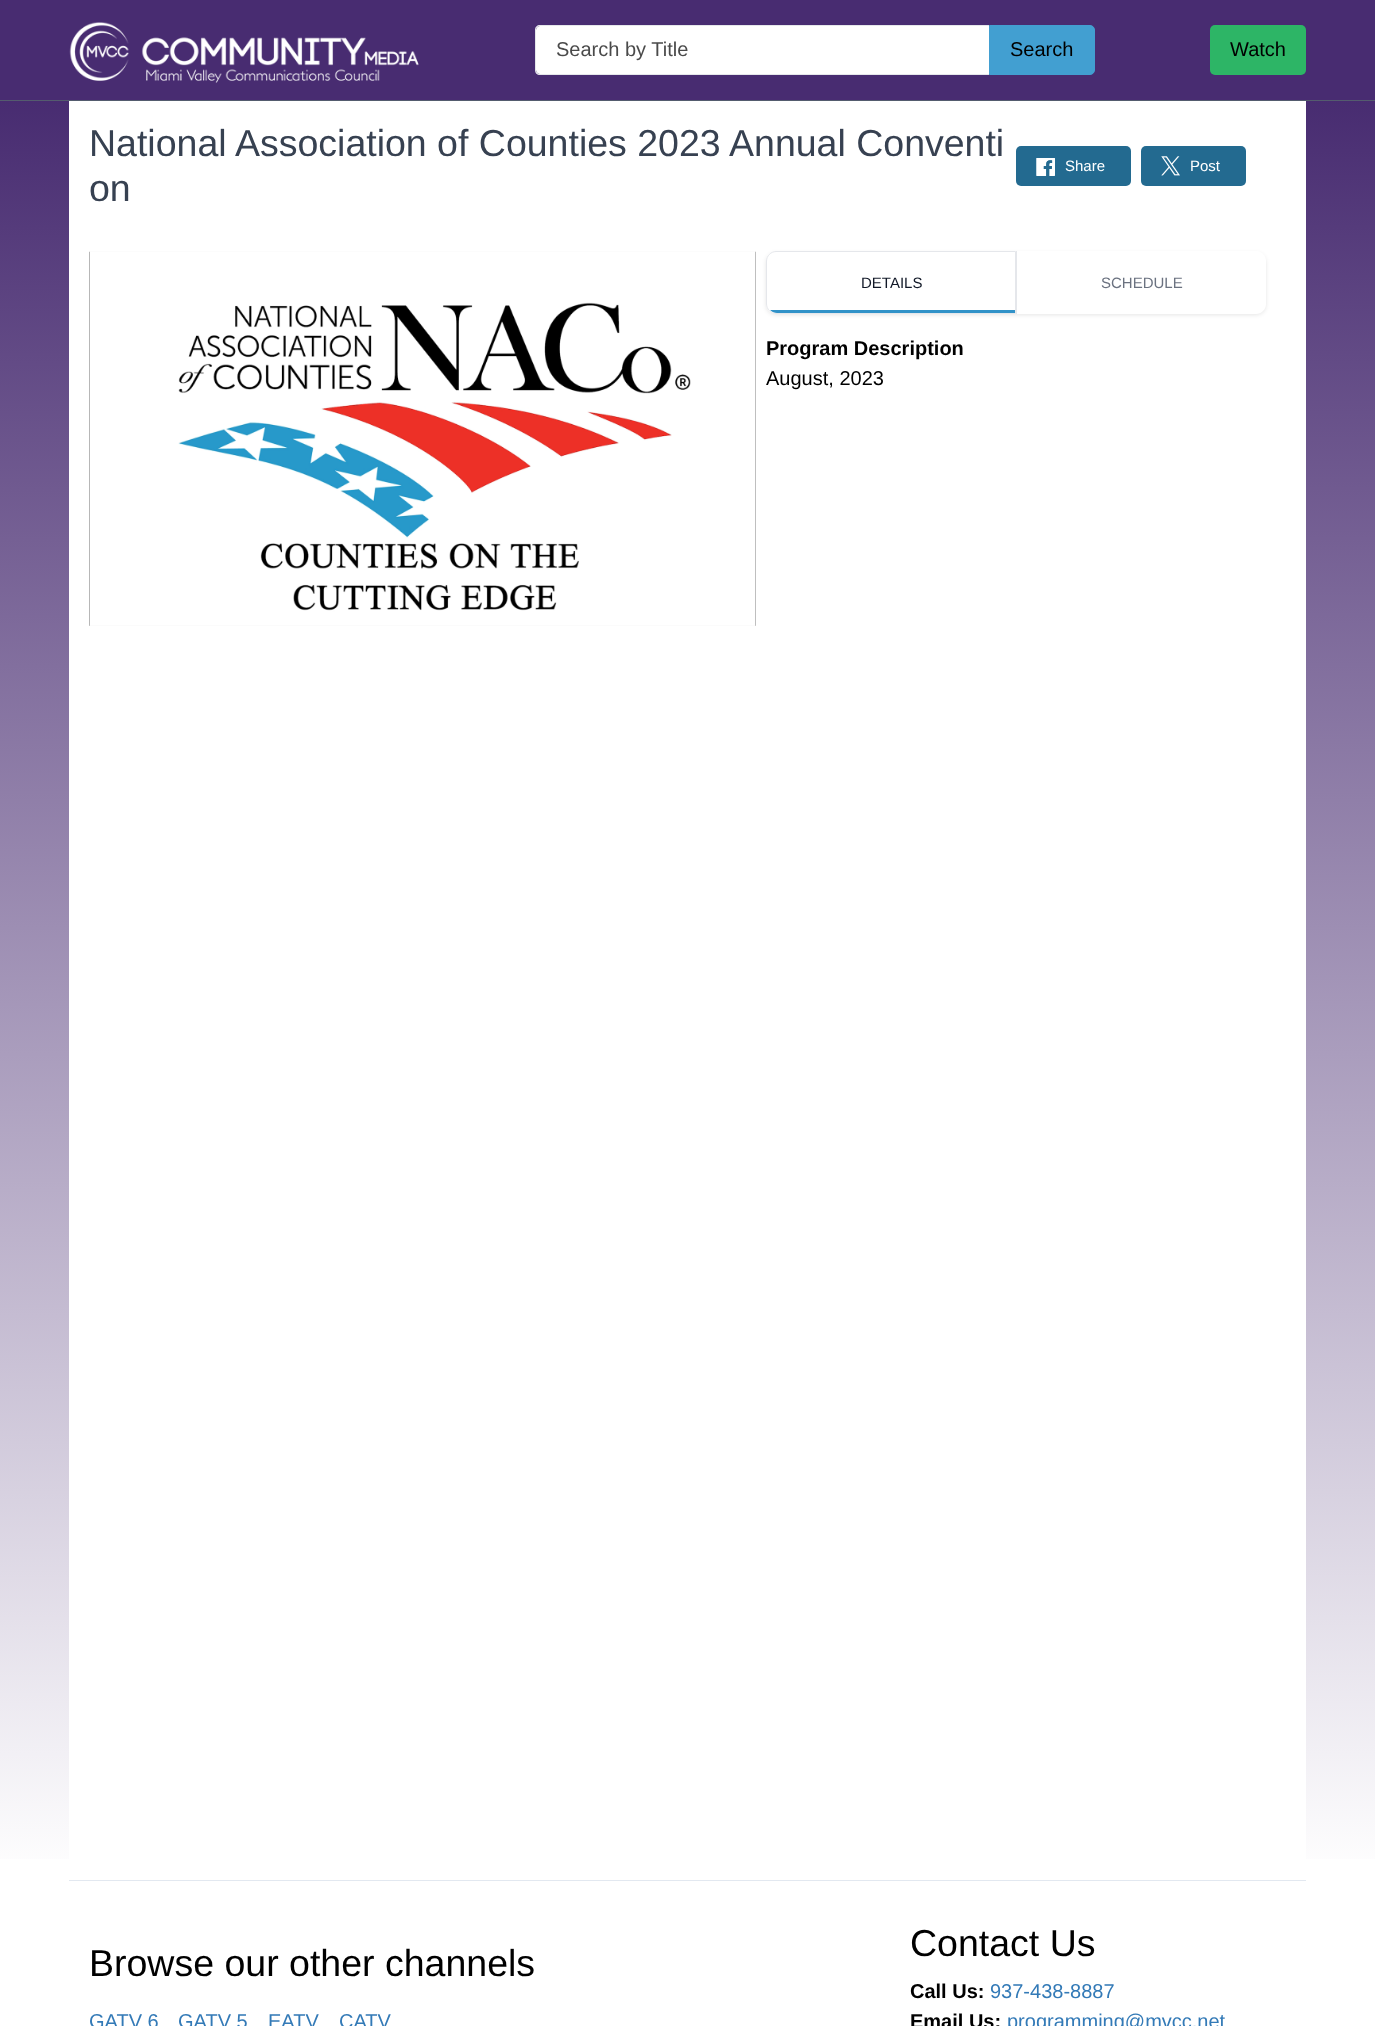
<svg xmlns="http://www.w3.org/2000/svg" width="1375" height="2026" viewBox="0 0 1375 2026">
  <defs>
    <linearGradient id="g1" gradientUnits="userSpaceOnUse" x1="687" y1="101" x2="688" y2="1880"><stop offset="0" stop-color="#482c71"/><stop offset="1" stop-color="#fff"/></linearGradient>
    <clipPath id="clip1"><path d="M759 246H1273V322H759ZM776 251H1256C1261.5 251 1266 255.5 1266 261V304C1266 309.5 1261.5 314 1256 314H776C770.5 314 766 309.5 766 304V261C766 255.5 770.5 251 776 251Z" clip-rule="evenodd"/></clipPath>
    <clipPath id="clip2"><path d="M777 253H1015V313H777C772 313 768 309 768 304V262C768 257 772 253 777 253Z"/></clipPath>
  </defs>
  <rect width="100%" height="100%" fill="#fff"/>
  <path d="M0 0h1375v100H0z" fill="#482c71"/>
  <path d="M0 100h1375v1H0z" fill="#545c6e"/>
  <image x="69" y="22" width="350" height="61" href="img/1.png"/>
  <path d="M540 26H989V74H540C538 74 536 72 536 70V30C536 28 538 26 540 26Z" fill="#fff"/>
  <path d="M540 25H989V75H540C537 75 535 73 535 70V30C535 27 537 25 540 25ZM540 26H989V74H540C538 74 536 72 536 70V30C536 28 538 26 540 26Z" fill="#e5e7eb" fill-rule="evenodd"/>
  <path d="M989.5 25.5H1090C1092.5 25.5 1094.5 27.5 1094.5 30V70C1094.5 72.5 1092.5 74.5 1090 74.5H989.5Z" fill="#429fd1" stroke="#429fd1"/>
  <rect x="1210" y="25" width="96" height="50" rx="5" fill="#2db566"/>
  <path d="M0 101h1375v1758H0z" fill="url(#g1)"/>
  <path d="M69 101h1237v1758H69z" fill="#fff"/>
  <rect x="1016" y="146" width="115" height="40" rx="5" fill="#236a90"/>
  <image x="1036" y="158" width="19" height="18" href="img/2.png"/>
  <rect x="1141" y="146" width="105" height="40" rx="5" fill="#236a90"/>
  <image x="1161" y="156" width="19" height="20" href="img/3.png"/>
  <image x="89" y="251" width="667" height="375" href="img/4.png"/>
  <g clip-path="url(#clip1)">
    <rect x="766" y="253" width="500" height="62" rx="10" fill="#0000001a" filter="blur(2px)"/>
  </g>
  <path d="M776 251.5H1015.5V313.5H776C771 313.5 766.5 309 766.5 304V261C766.5 256 771 251.5 776 251.5Z" fill="#fff" stroke="#e5e7eb"/>
  <g clip-path="url(#clip2)">
    <path d="M768 310h247v3H768z" fill="#3192c8"/>
  </g>
  <path d="M1016 251h1v63H1016z" fill="#e5e7eb"/>
  <path d="M69 1880h1237v1H69z" fill="#e2e8f0"/>
  <text x="556" y="56" font-family="Liberation Sans" font-size="20" fill="#4a4a4a">Search by Title</text>
  <g font-family="Liberation Sans" font-size="20" fill="#000">
    <text x="1010" y="56">Search</text>
    <text x="1230" y="56">Watch</text>
  </g>
  <g font-family="Liberation Sans" font-size="37.5" fill="#374151">
    <text x="89" y="156">National Association of Counties 2023 Annual Conventi</text>
    <text x="89" y="201">on</text>
  </g>
  <g font-family="Liberation Sans" font-size="15" fill="#fff">
    <text x="1065" y="171">Share</text>
    <text x="1190" y="171">Post</text>
  </g>
  <text x="861" y="288" font-family="Liberation Sans" font-size="15" fill="#111827">DETAILS</text>
  <text x="1101" y="288" font-family="Liberation Sans" font-size="15" fill="#6b7280">SCHEDULE</text>
  <text x="766" y="355" font-family="Liberation Sans" font-size="20" font-weight="bold" fill="#000">Program Description</text>
  <text x="766" y="385" font-family="Liberation Sans" font-size="20" fill="#000">August, 2023</text>
  <text x="89" y="1976" font-family="Liberation Sans" font-size="37.5" fill="#000">Browse our other channels</text>
  <g font-family="Liberation Sans" font-size="20" fill="#337ab7">
    <text x="89" y="2028">GATV 6</text>
    <text x="178" y="2028">GATV 5</text>
    <text x="268" y="2028">EATV</text>
    <text x="339" y="2028">CATV</text>
  </g>
  <text x="910" y="1956" font-family="Liberation Sans" font-size="37.5" fill="#000">Contact Us</text>
  <text x="910" y="1998" font-family="Liberation Sans" font-size="20" font-weight="bold" fill="#000">Call Us:</text>
  <text x="990" y="1998" font-family="Liberation Sans" font-size="20" fill="#337ab7">937-438-8887</text>
  <text x="910" y="2028" font-family="Liberation Sans" font-size="20" font-weight="bold" fill="#000">Email Us:</text>
  <text x="1007" y="2028" font-family="Liberation Sans" font-size="20" fill="#337ab7">programming@mvcc.net</text>
</svg>
